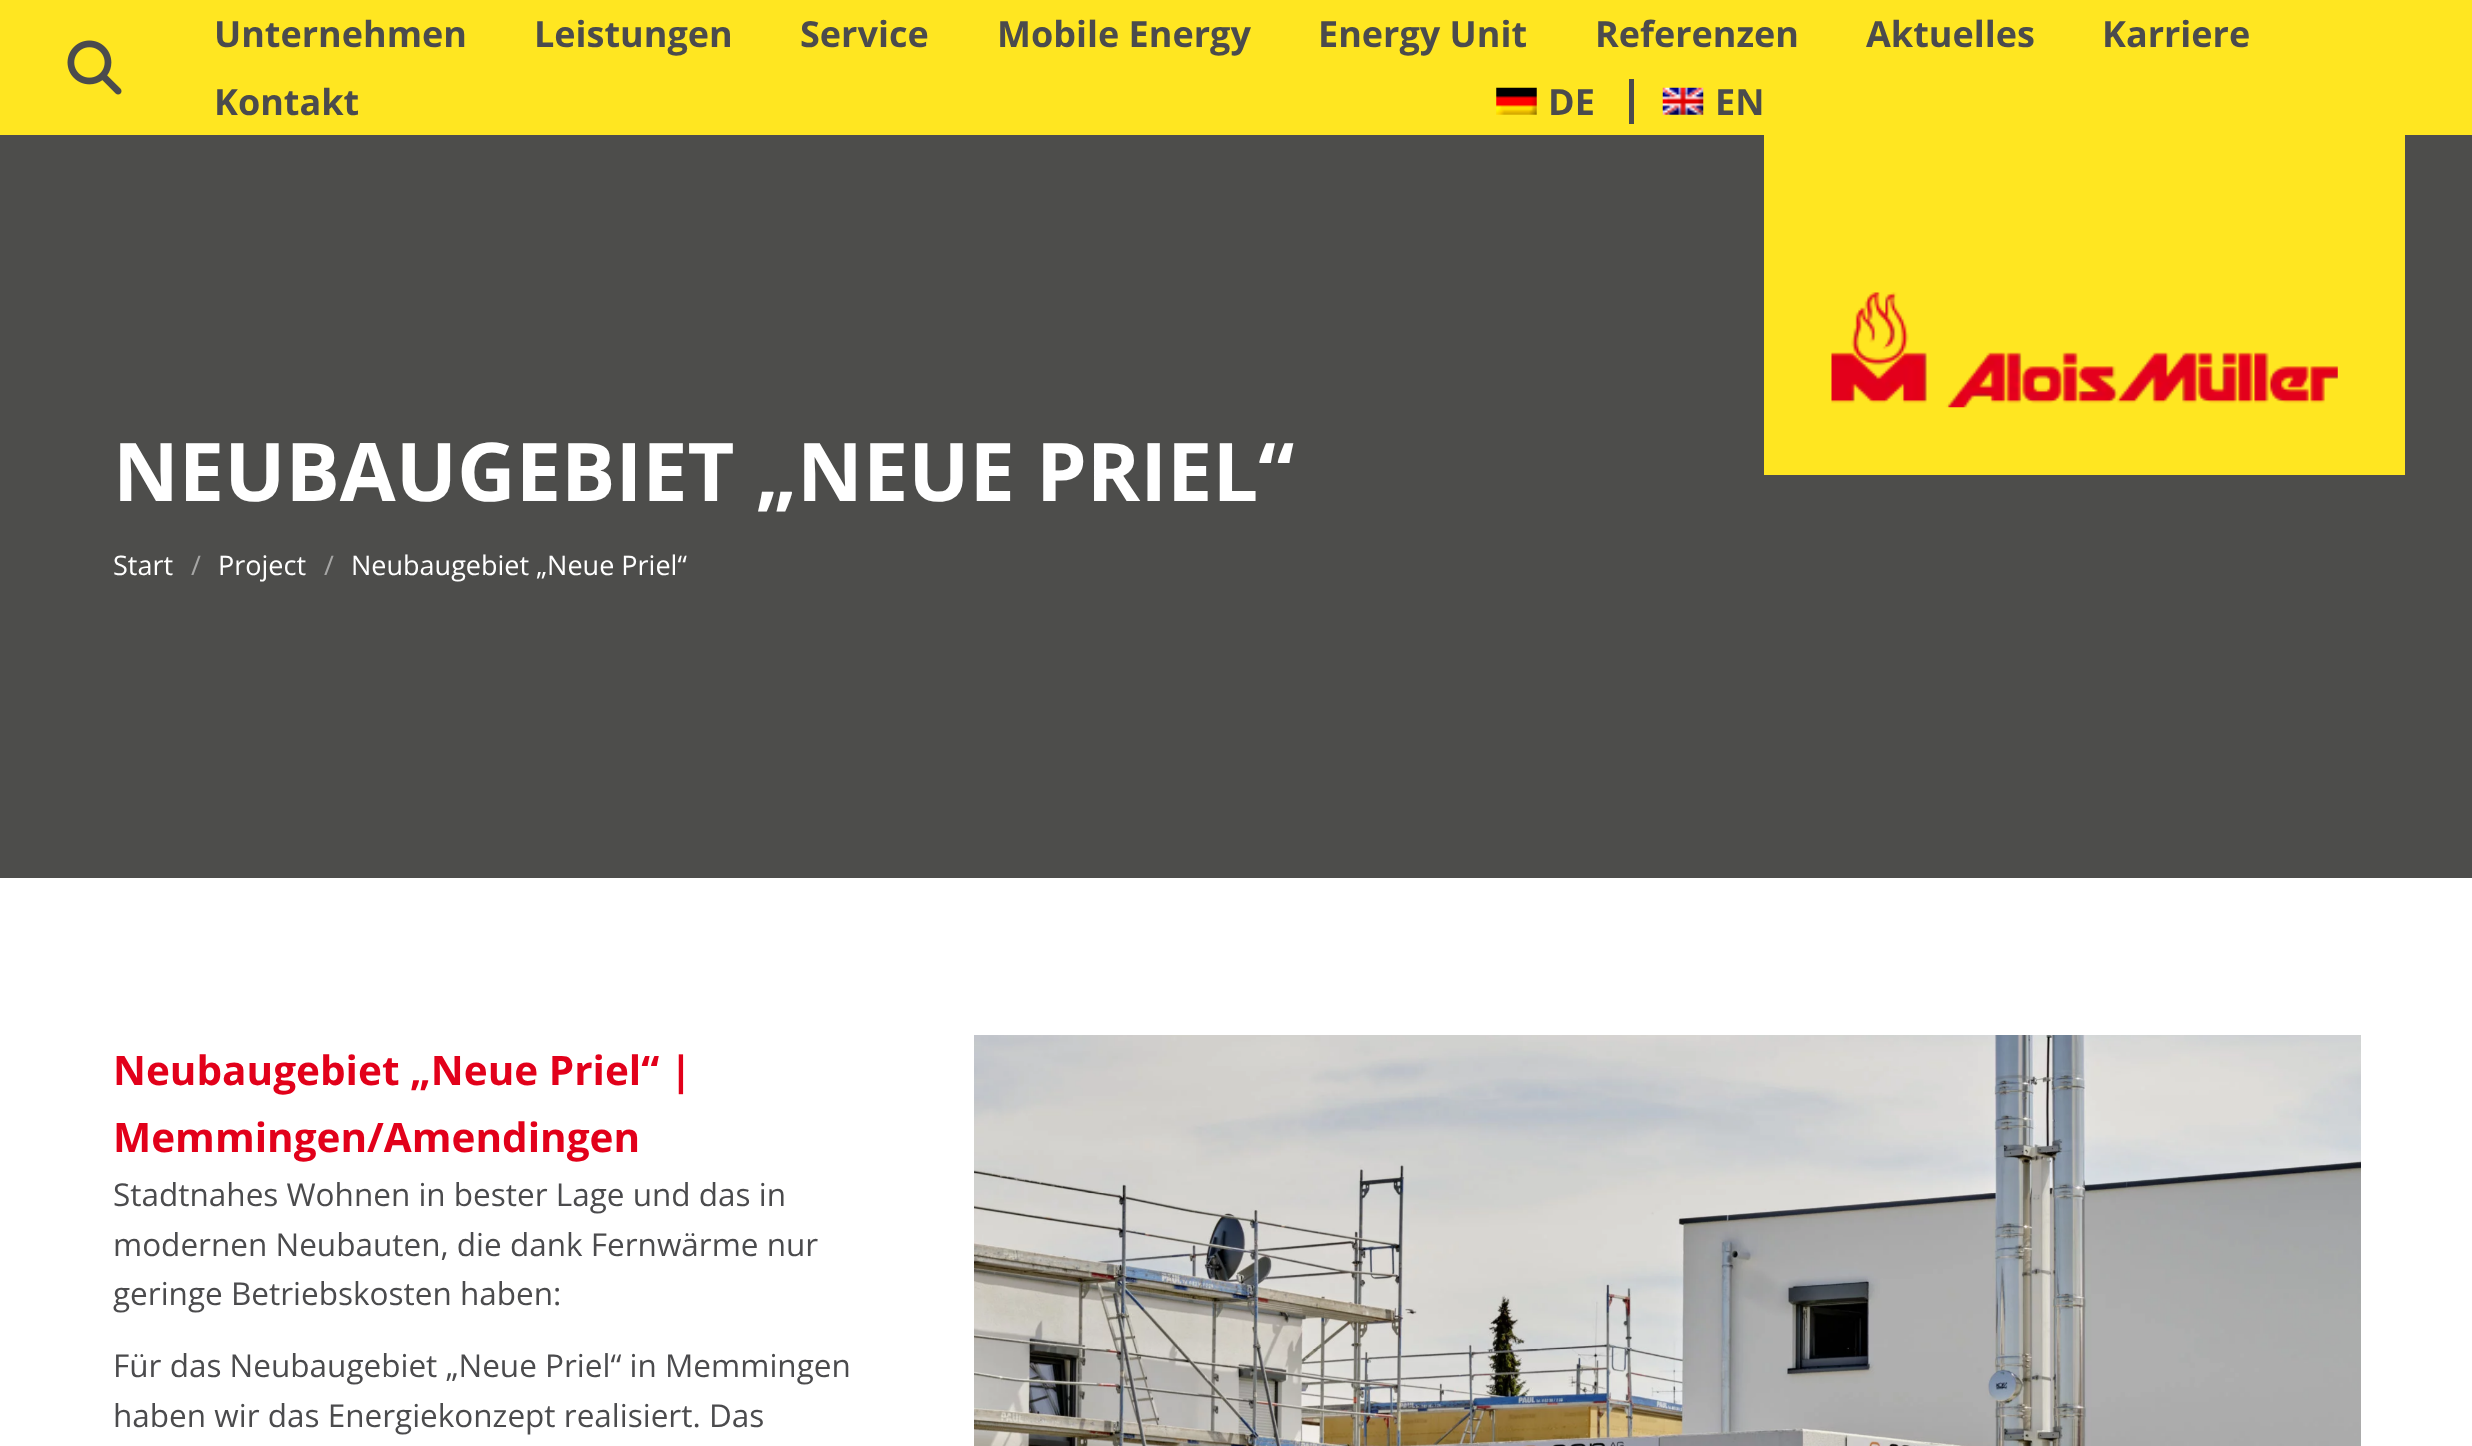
<svg xmlns="http://www.w3.org/2000/svg" width="2472" height="1446" viewBox="0 0 2472 1446">
  <rect width="100%" height="100%" fill="#fff"/>
  <path d="M0 0h2472v135H0z" fill="#ffe621"/>
  <image x="67" y="40" width="55" height="55" href="img/1.png"/>
  <image x="1496" y="87" width="41" height="28" href="img/2.png"/>
  <path d="M1629 79h5v45H1629z" fill="#4b4b4d"/>
  <image x="1662" y="87" width="42" height="28" href="img/3.png"/>
  <path d="M0 135h2472v743H0z" fill="#4d4d4b"/>
  <path d="M1764 135h641v340H1764z" fill="#ffe621"/>
  <image x="1831" y="292" width="507" height="116" href="img/4.png"/>
  <image x="974" y="1035" width="1387" height="411" href="img/5.png"/>
  <g font-family="Open Sans" font-size="36" font-weight="bold" fill="#4b4b4d">
    <text x="214" y="47">Unternehmen</text>
    <text x="534" y="47">Leistungen</text>
    <text x="800" y="47">Service</text>
    <text x="997" y="47">Mobile Energy</text>
    <text x="1318" y="47">Energy Unit</text>
    <text x="1595" y="47">Referenzen</text>
    <text x="1866" y="47">Aktuelles</text>
    <text x="2102" y="47">Karriere</text>
    <text x="214" y="115">Kontakt</text>
    <text x="1548" y="115">DE</text>
    <text x="1715" y="115">EN</text>
  </g>
  <text x="113" y="501" font-family="Open Sans" font-size="81" font-weight="bold" fill="#fff">NEUBAUGEBIET „NEUE PRIEL“</text>
  <text x="113" y="575" font-family="Open Sans" font-size="27" fill="#fff">Start</text>
  <text x="191" y="575" font-family="Open Sans" font-size="27" fill="#a6a6a5">/</text>
  <text x="218" y="575" font-family="Open Sans" font-size="27" fill="#fff">Project</text>
  <text x="324" y="575" font-family="Open Sans" font-size="27" fill="#a6a6a5">/</text>
  <text x="351" y="575" font-family="Open Sans" font-size="27" fill="#fff">Neubaugebiet „Neue Priel“</text>
  <g font-family="Open Sans" font-size="40.5" font-weight="bold" fill="#e2001a">
    <text x="113" y="1085">Neubaugebiet „Neue Priel“ |</text>
    <text x="113" y="1152">Memmingen/Amendingen</text>
  </g>
  <g font-family="Open Sans" font-size="31.5" fill="#4b4b4d">
    <text x="113" y="1206">Stadtnahes Wohnen in bester Lage und das in</text>
    <text x="113" y="1256">modernen Neubauten, die dank Fernwärme nur</text>
    <text x="113" y="1305">geringe Betriebskosten haben:</text>
    <text x="113" y="1377">Für das Neubaugebiet „Neue Priel“ in Memmingen</text>
    <text x="113" y="1427">haben wir das Energiekonzept realisiert. Das</text>
  </g>
</svg>
